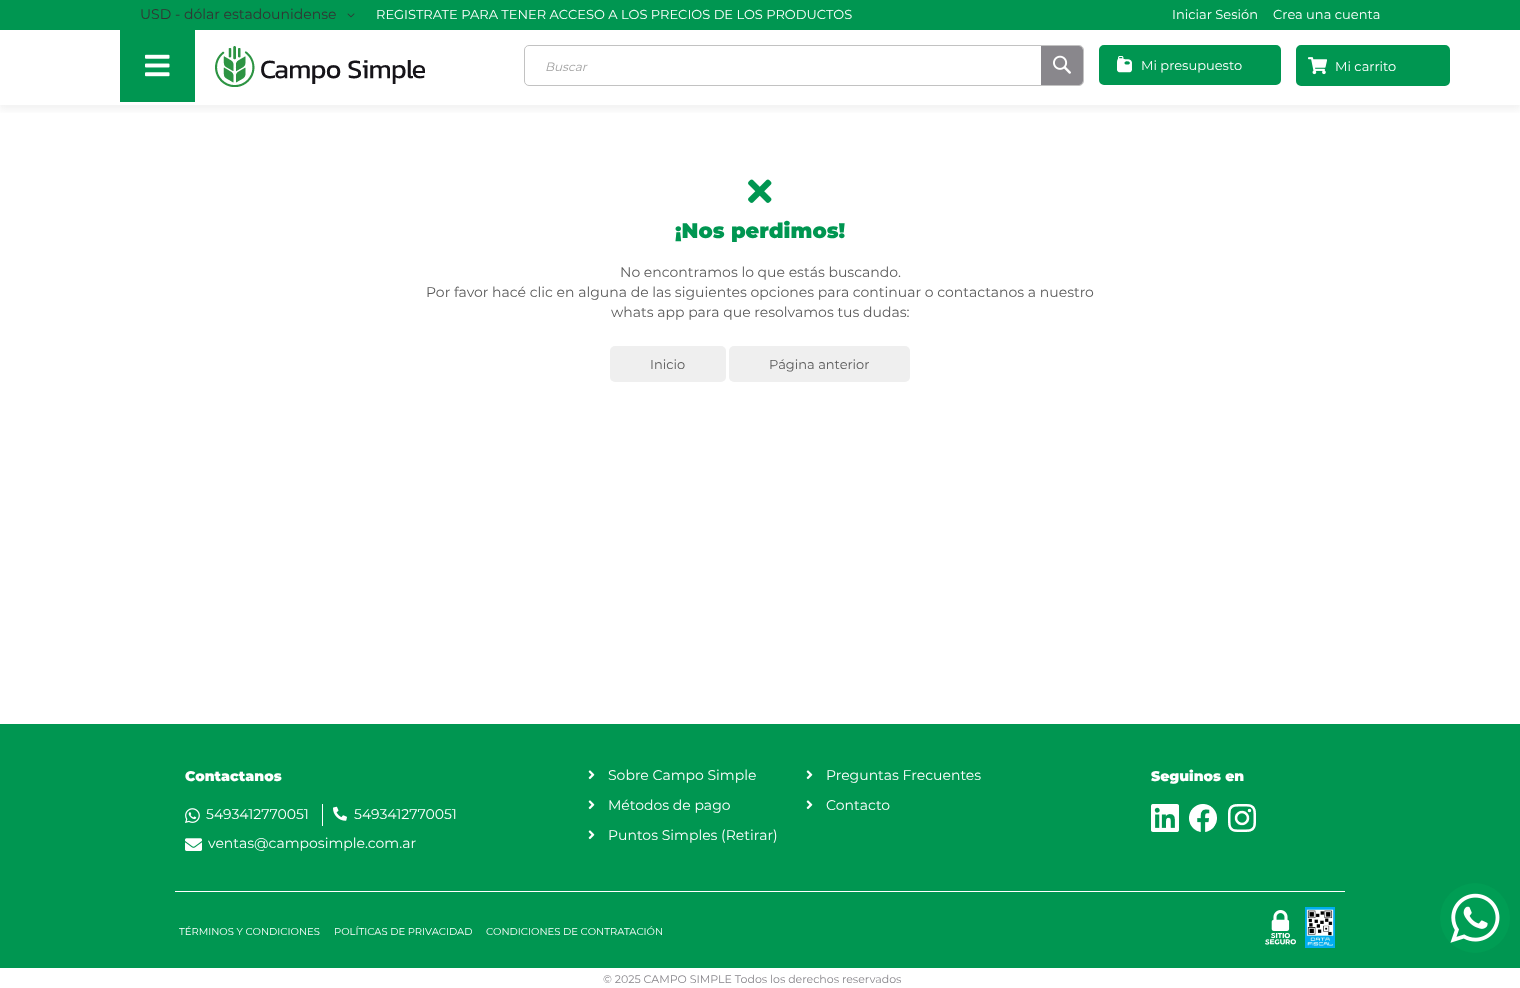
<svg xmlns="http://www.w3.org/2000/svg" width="1520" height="988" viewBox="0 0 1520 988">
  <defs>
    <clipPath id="clip1"><path d="M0 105h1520v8H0z"/></clipPath>
  </defs>
  <rect width="100%" height="100%" fill="#fff"/>
  <g clip-path="url(#clip1)">
    <path d="M-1 3h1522v107H-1z" fill="#8080801a" filter="blur(3.5px)"/>
  </g>
  <path d="M0 0h1520v30H0z" fill="#009651"/>
  <image x="347" y="13" width="8" height="5" href="img/1.png"/>
  <path d="M120 30h75v72H120z" fill="#009651"/>
  <image x="145" y="54" width="25" height="23" href="img/2.png"/>
  <image x="215" y="46" width="210" height="41" href="img/3.png"/>
  <rect x="524.5" y="45.5" width="559" height="40" rx="4.5" fill="none" stroke="#c2c2c2"/>
  <path d="M1041 46H1079C1081 46 1083 48 1083 50V81C1083 83 1081 85 1079 85H1041Z" fill="#89878c"/>
  <image x="1053" y="55" width="18" height="19" href="img/4.png"/>
  <rect x="1100" y="46" width="180" height="38" rx="4" fill="#009651" stroke="#009651" stroke-width="2"/>
  <image x="1117" y="56" width="15" height="17" href="img/5.png"/>
  <rect x="1297" y="46" width="152" height="39" rx="4" fill="#009651" stroke="#009651" stroke-width="2"/>
  <image x="1308" y="57" width="19" height="18" href="img/6.png"/>
  <image x="748" y="179" width="24" height="24" href="img/7.png"/>
  <rect x="610" y="346" width="116" height="36" rx="5" fill="#efefef"/>
  <rect x="729" y="346" width="181" height="36" rx="5" fill="#efefef"/>
  <path d="M0 724h1520v244H0z" fill="#009651"/>
  <image x="185" y="808" width="15" height="15" href="img/8.png"/>
  <path d="M322 804h1v22H322z" fill="#fff"/>
  <image x="333" y="806" width="14" height="15" href="img/9.png"/>
  <image x="185" y="838" width="17" height="13" href="img/10.png"/>
  <image x="588" y="770" width="7" height="10" href="img/11.png"/>
  <image x="588" y="800" width="7" height="10" href="img/11.png"/>
  <image x="588" y="830" width="7" height="10" href="img/11.png"/>
  <image x="806" y="770" width="7" height="10" href="img/11.png"/>
  <image x="806" y="800" width="7" height="10" href="img/11.png"/>
  <image x="1151" y="804" width="28" height="28" href="img/12.png"/>
  <image x="1189" y="804" width="28" height="28" href="img/13.png"/>
  <image x="1228" y="804" width="28" height="28" href="img/14.png"/>
  <path d="M175 891h1170v1H175z" fill="#fff"/>
  <image x="1265" y="910" width="31" height="35" href="img/15.png"/>
  <image x="1305" y="907" width="30" height="41" href="img/16.png"/>
  <circle cx="1475" cy="918" r="35" fill="#009d54"/>
  <image x="1450" y="893" width="50" height="50" href="img/17.png"/>
  <text x="140" y="19" font-family="Montserrat" font-size="14" fill="#333">USD - dólar estadounidense</text>
  <g font-family="Montserrat" font-size="13" fill="#fff">
    <text x="376" y="19">REGISTRATE PARA TENER ACCESO A LOS PRECIOS DE LOS PRODUCTOS</text>
    <text x="1172" y="19">Iniciar Sesión</text>
    <text x="1273" y="19">Crea una cuenta</text>
  </g>
  <text x="545" y="71" font-family="Montserrat" font-size="12" font-style="italic" fill="#a2a2a2">Buscar</text>
  <g font-family="Montserrat" font-size="13" fill="#fff">
    <text x="1141" y="70">Mi presupuesto</text>
    <text x="1335" y="71">Mi carrito</text>
  </g>
  <text x="675" y="238" font-family="Montserrat" font-size="21" font-weight="900" fill="#009651">¡Nos perdimos!</text>
  <g font-family="Montserrat" font-size="14" fill="#5a5a5a">
    <text x="620" y="277">No encontramos lo que estás buscando.</text>
    <text x="426" y="297">Por favor hacé clic en alguna de las siguientes opciones para continuar o contactanos a nuestro</text>
    <text x="611" y="317">whats app para que resolvamos tus dudas:</text>
  </g>
  <g font-family="Montserrat" font-size="13" fill="#5a5a5a">
    <text x="650" y="369">Inicio</text>
    <text x="769" y="369">Página anterior</text>
  </g>
  <text x="185" y="781" font-family="Montserrat" font-size="14" font-weight="900" fill="#fff">Contactanos</text>
  <g font-family="Montserrat" font-size="14" fill="#fff">
    <text x="206" y="819">5493412770051</text>
    <text x="354" y="819">5493412770051</text>
    <text x="208" y="848">ventas@camposimple.com.ar</text>
    <text x="608" y="780">Sobre Campo Simple</text>
    <text x="608" y="810">Métodos de pago</text>
    <text x="608" y="840">Puntos Simples (Retirar)</text>
    <text x="826" y="780">Preguntas Frecuentes</text>
    <text x="826" y="810">Contacto</text>
  </g>
  <text x="1151" y="781" font-family="Montserrat" font-size="14" font-weight="900" fill="#fff">Seguinos en</text>
  <g font-family="Montserrat" font-size="10" fill="#fff">
    <text x="179" y="935">TÉRMINOS Y CONDICIONES</text>
    <text x="334" y="935">POLÍTICAS DE PRIVACIDAD</text>
    <text x="486" y="935">CONDICIONES DE CONTRATACIÓN</text>
  </g>
  <text x="603" y="983" font-family="Montserrat" font-size="11" fill="#89878c">© 2025 CAMPO SIMPLE Todos los derechos reservados</text>
</svg>
